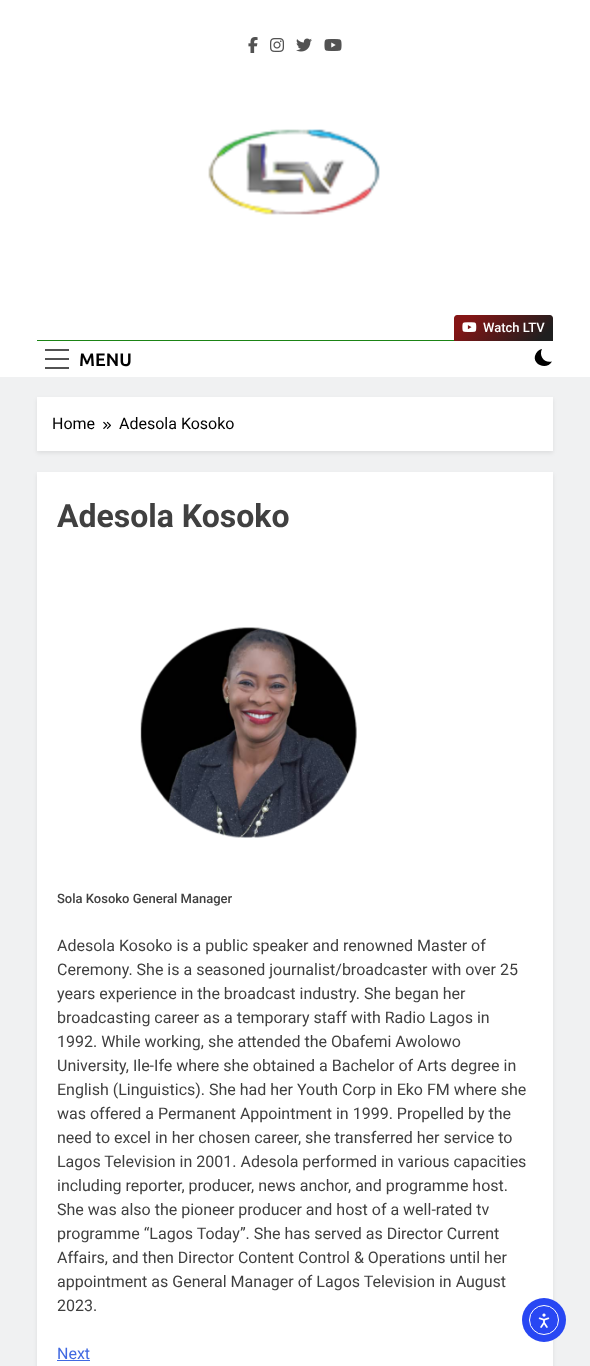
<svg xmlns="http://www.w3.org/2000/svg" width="590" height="1366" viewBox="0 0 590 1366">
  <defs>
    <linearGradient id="g1" gradientUnits="userSpaceOnUse" x1="472" y1="297" x2="535" y2="359"><stop offset="0.13" stop-color="#851515"/><stop offset="0.89" stop-color="#1f1f1f"/></linearGradient>
  </defs>
  <rect width="100%" height="100%" fill="#f0f1f2"/>
  <path d="M0 0h590v377H0z" fill="#fff"/>
  <image x="248" y="37" width="10" height="16" href="img/1.png"/>
  <image x="270" y="38" width="14" height="14" href="img/2.png"/>
  <image x="296" y="38" width="16" height="14" href="img/3.png"/>
  <image x="324" y="39" width="18" height="12" href="img/4.png"/>
  <image x="208" y="129" width="172" height="86" href="img/5.png"/>
  <path d="M37 340h417v1H37z" fill="#1b8415"/>
  <path d="M457 315H550C551.5 315 553 316.5 553 318V341H454V318C454 316.5 455.5 315 457 315Z" fill="url(#g1)"/>
  <image x="462" y="322" width="15" height="10" href="img/6.png"/>
  <path d="M45 349h24v2H45z" fill="#525252"/>
  <path d="M45 358h24v2H45z" fill="#525252"/>
  <path d="M45 367h24v2H45z" fill="#525252"/>
  <path d="M552 361.5C544.5 363.5 538.5 356 542 349C539.5 349.5 537.5 351 536 353.5C530 363.5 546.5 371.5 552 361.5Z" fill="#000"/>
  <path d="M37 399h516v54H37z" fill="#00000014" filter="blur(2px)"/>
  <path d="M37 397h516v54H37z" fill="#fff"/>
  <image x="103" y="421" width="8" height="8" href="img/7.png"/>
  <path d="M37 474h516v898H37z" fill="#00000014" filter="blur(2px)"/>
  <path d="M37 472h516v894H37z" fill="#fff"/>
  <image x="140" y="627" width="217" height="211" href="img/8.png"/>
  <path d="M57 1360h33v1H57z" fill="#4169e1"/>
  <circle cx="544" cy="1320" r="22" fill="#2847f3"/>
  <circle cx="544" cy="1320" r="14.5" fill="none" stroke="#fff"/>
  <image x="538" y="1313" width="12" height="15" href="img/9.png"/>
  <text x="483" y="332" font-family="Roboto" font-size="13" font-weight="500" fill="#fff">Watch LTV</text>
  <text x="79" y="366" font-family="Ubuntu" font-size="18" font-weight="bold" fill="#000">MENU</text>
  <g font-family="Roboto" font-size="16" fill="#000">
    <text x="52" y="429">Home</text>
    <text x="119" y="429">Adesola Kosoko</text>
  </g>
  <text x="57" y="527" font-family="Roboto" font-size="32" font-weight="bold" fill="#404040">Adesola Kosoko</text>
  <text x="57" y="903" font-family="Roboto" font-size="13" font-weight="500" fill="#404040">Sola Kosoko General Manager</text>
  <g font-family="Roboto" font-size="16" fill="#404040">
    <text x="57" y="951">Adesola Kosoko is a public speaker and renowned Master of</text>
    <text x="57" y="975">Ceremony. She is a seasoned journalist/broadcaster with over 25</text>
    <text x="57" y="999">years experience in the broadcast industry. She began her</text>
    <text x="57" y="1023">broadcasting career as a temporary staff with Radio Lagos in</text>
    <text x="57" y="1047">1992. While working, she attended the Obafemi Awolowo</text>
    <text x="57" y="1071">University, Ile-Ife where she obtained a Bachelor of Arts degree in</text>
    <text x="57" y="1095">English (Linguistics). She had her Youth Corp in Eko FM where she</text>
    <text x="57" y="1119">was offered a Permanent Appointment in 1999. Propelled by the</text>
    <text x="57" y="1143">need to excel in her chosen career, she transferred her service to</text>
    <text x="57" y="1167">Lagos Television in 2001. Adesola performed in various capacities</text>
    <text x="57" y="1191">including reporter, producer, news anchor, and programme host.</text>
    <text x="57" y="1215">She was also the pioneer producer and host of a well-rated tv</text>
    <text x="57" y="1239">programme “Lagos Today”. She has served as Director Current</text>
    <text x="57" y="1263">Affairs, and then Director Content Control &amp; Operations until her</text>
    <text x="57" y="1287">appointment as General Manager of Lagos Television in August</text>
    <text x="57" y="1311">2023.</text>
  </g>
  <text x="57" y="1359" font-family="Roboto" font-size="16" fill="#4169e1">Next</text>
</svg>
